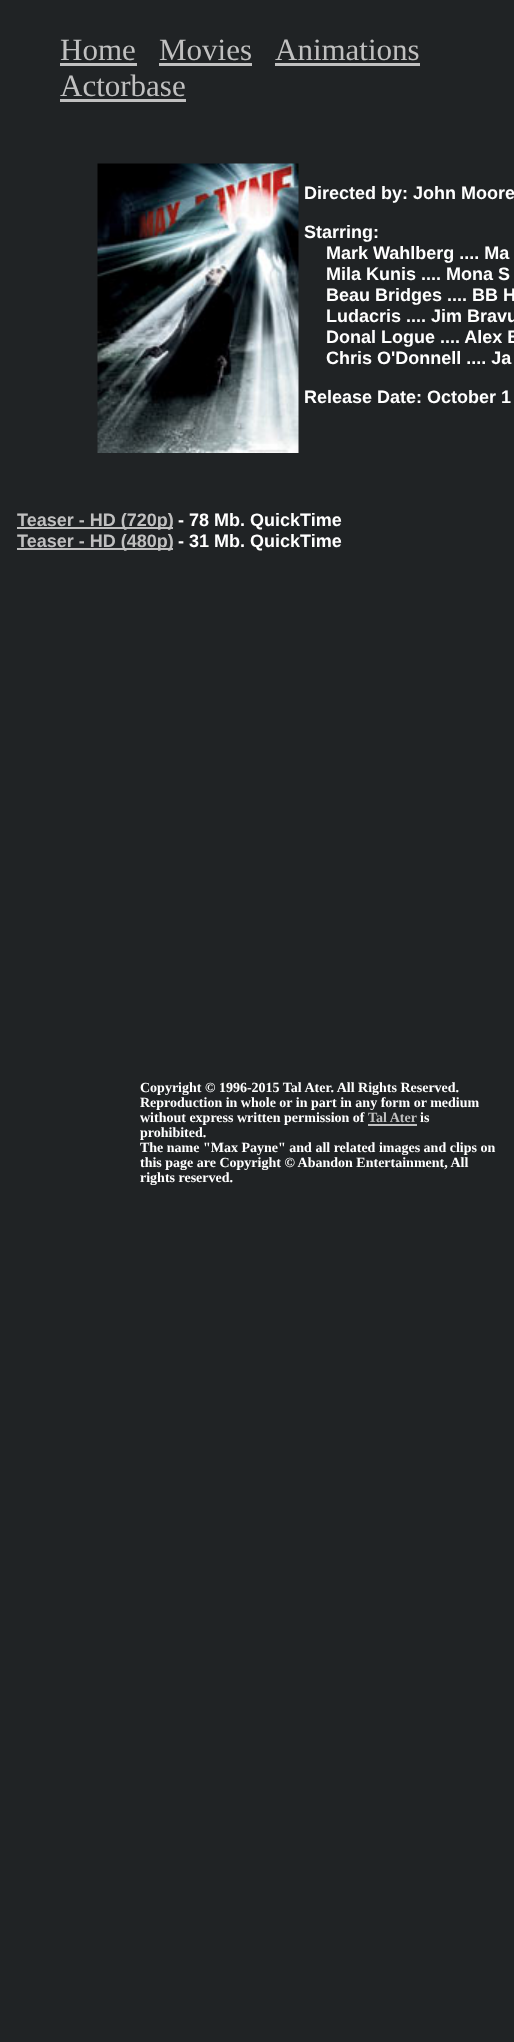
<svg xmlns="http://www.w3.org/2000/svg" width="514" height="2042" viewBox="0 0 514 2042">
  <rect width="100%" height="100%" fill="#202325"/>
  <path d="M60 63h77v3H60z" fill="#c0c0c0"/>
  <path d="M159 63h93v3H159z" fill="#c0c0c0"/>
  <path d="M275 63h145v3H275z" fill="#c0c0c0"/>
  <path d="M60 99h126v3H60z" fill="#c0c0c0"/>
  <image x="97" y="163" width="202" height="290" href="img/1.png"/>
  <path d="M17 527h156v2H17z" fill="#c0c0c0"/>
  <path d="M17 548h156v2H17z" fill="#c0c0c0"/>
  <path d="M368 1124h49v2H368z" fill="#c0c0c0"/>
  <g font-family="Liberation Serif" font-size="31" fill="#c0c0c0">
    <text x="60" y="60">Home</text>
    <text x="159" y="60">Movies</text>
    <text x="275" y="60">Animations</text>
    <text x="60" y="96">Actorbase</text>
  </g>
  <g font-family="Liberation Sans" font-size="18" font-weight="bold" fill="#fff">
    <text x="304" y="199">Directed by: John Moore</text>
    <text x="304" y="238">Starring:</text>
    <text x="326" y="259">Mark Wahlberg .... Ma</text>
    <text x="326" y="280">Mila Kunis .... Mona S</text>
    <text x="326" y="301">Beau Bridges .... BB H</text>
    <text x="326" y="322">Ludacris .... Jim Bravu</text>
    <text x="326" y="343">Donal Logue .... Alex B</text>
    <text x="326" y="364">Chris O'Donnell .... Ja</text>
    <text x="304" y="403">Release Date: October 1</text>
  </g>
  <text x="17" y="526" font-family="Liberation Sans" font-size="18" font-weight="bold" fill="#c0c0c0">Teaser - HD (720p)</text>
  <text x="178" y="526" font-family="Liberation Sans" font-size="18" font-weight="bold" fill="#fff">- 78 Mb. QuickTime</text>
  <text x="17" y="547" font-family="Liberation Sans" font-size="18" font-weight="bold" fill="#c0c0c0">Teaser - HD (480p)</text>
  <text x="178" y="547" font-family="Liberation Sans" font-size="18" font-weight="bold" fill="#fff">- 31 Mb. QuickTime</text>
  <g font-family="Liberation Serif" font-size="14" font-weight="bold" fill="#fff">
    <text x="140" y="1092">Copyright © 1996-2015 Tal Ater. All Rights Reserved.</text>
    <text x="140" y="1107">Reproduction in whole or in part in any form or medium</text>
    <text x="140" y="1122">without express written permission of</text>
  </g>
  <text x="368" y="1122" font-family="Liberation Serif" font-size="14" font-weight="bold" fill="#c0c0c0">Tal Ater</text>
  <g font-family="Liberation Serif" font-size="14" font-weight="bold" fill="#fff">
    <text x="420" y="1122">is</text>
    <text x="140" y="1137">prohibited.</text>
    <text x="140" y="1152">The name "Max Payne" and all related images and clips on</text>
    <text x="140" y="1167">this page are Copyright © Abandon Entertainment, All</text>
    <text x="140" y="1182">rights reserved.</text>
  </g>
</svg>
